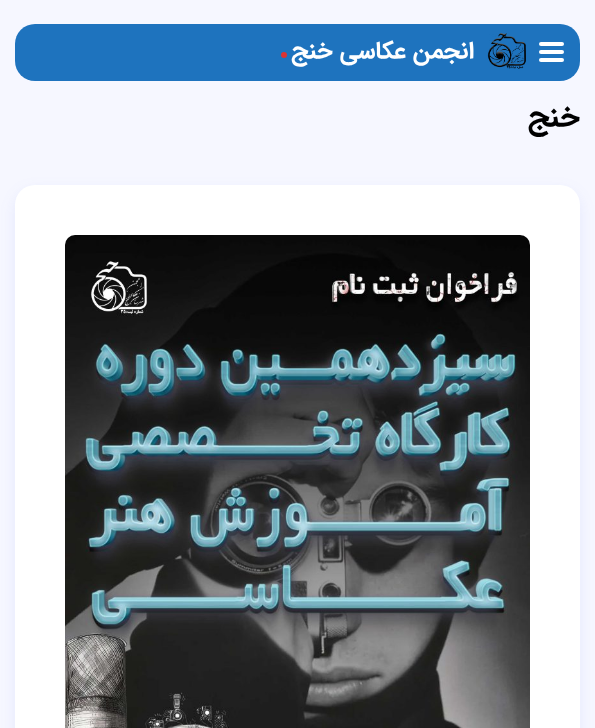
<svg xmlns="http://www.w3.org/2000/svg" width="595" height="728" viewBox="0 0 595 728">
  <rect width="100%" height="100%" fill="#f6f7ff"/>
  <rect x="15" y="24" width="565" height="57" rx="20" fill="#1e73be"/>
  <rect x="539" y="42" width="25" height="4" rx="2" fill="#fff"/>
  <rect x="539" y="50" width="25" height="4" rx="2" fill="#fff"/>
  <rect x="539" y="58" width="25" height="4" rx="2" fill="#fff"/>
  <image x="487" y="33" width="39" height="36" href="img/1.png"/>
  <circle cx="284" cy="55" r="3" fill="#d33"/>
  <rect x="15" y="191" width="565" height="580" rx="20" fill="#4a63e71a" filter="blur(7.5px)"/>
  <rect x="15" y="185" width="565" height="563" rx="20" fill="#fff"/>
  <image x="65" y="235" width="465" height="493" href="img/2.png"/>
  <text x="474" y="58" font-family="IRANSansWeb" font-size="24" font-weight="bold" direction="rtl" fill="#fff">انجمن عکاسی خنج</text>
  <text x="580" y="126" font-family="IRANSansWeb" font-size="30" font-weight="bold" direction="rtl" fill="#000">خنج</text>
</svg>
